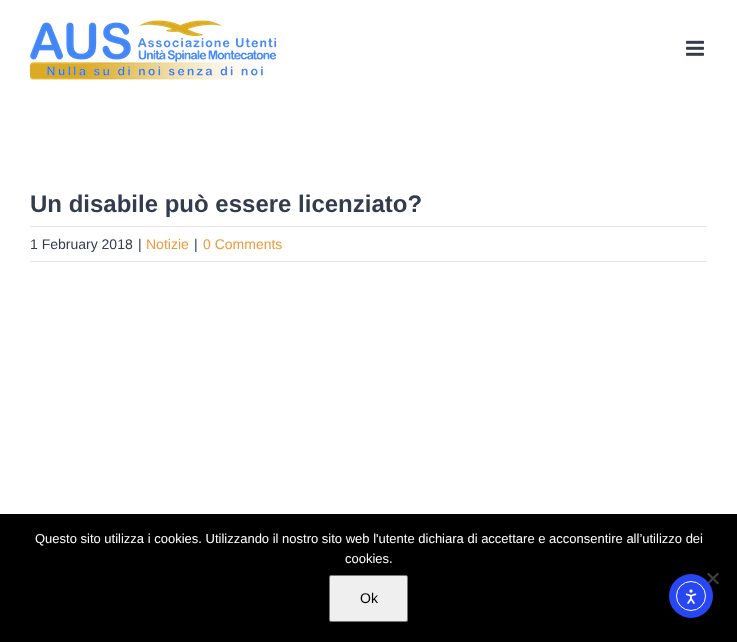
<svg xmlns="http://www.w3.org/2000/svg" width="737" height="642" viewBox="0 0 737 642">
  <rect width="100%" height="100%" fill="#fff"/>
  <image x="30" y="20" width="247" height="60" href="img/1.png"/>
  <image x="686" y="40" width="18" height="16" href="img/2.png"/>
  <path d="M30 226h677v1H30z" fill="#e7e4e2"/>
  <path d="M30 261h677v1H30z" fill="#e7e4e2"/>
  <path d="M0 514h737v128H0z" fill="#000"/>
  <path d="M717.5 572.5L719 574L708.5 584.5L707 583Z" fill="#404040"/>
  <path d="M707 574L708.5 572.5L719 583L717.5 584.5Z" fill="#404040"/>
  <rect x="329.5" y="575.5" width="78" height="46" rx="1.5" fill="#efefef" stroke="#767676"/>
  <circle cx="691" cy="596" r="22" fill="#2847f3"/>
  <circle cx="691" cy="596" r="14.5" fill="none" stroke="#fff"/>
  <image x="685" y="589" width="12" height="15" href="img/3.png"/>
  <text x="30" y="212" font-family="Liberation Sans" font-size="24" font-weight="bold" fill="#333c4e">Un disabile può essere licenziato?</text>
  <g font-family="Liberation Sans" font-size="14" fill="#333c4e">
    <text x="30" y="249">1 February 2018</text>
    <text x="138" y="249">|</text>
  </g>
  <text x="146" y="249" font-family="Liberation Sans" font-size="14" fill="#ef9a3d">Notizie</text>
  <text x="194" y="249" font-family="Liberation Sans" font-size="14" fill="#333c4e">|</text>
  <text x="203" y="249" font-family="Liberation Sans" font-size="14" fill="#ef9a3d">0 Comments</text>
  <g font-family="Liberation Sans" font-size="13" fill="#fff">
    <text x="35" y="543">Questo sito utilizza i cookies. Utilizzando il nostro sito web l'utente dichiara di accettare e acconsentire all’utilizzo dei</text>
    <text x="345" y="563">cookies.</text>
  </g>
  <text x="360" y="603" font-family="Liberation Sans" font-size="14" fill="#000">Ok</text>
</svg>
